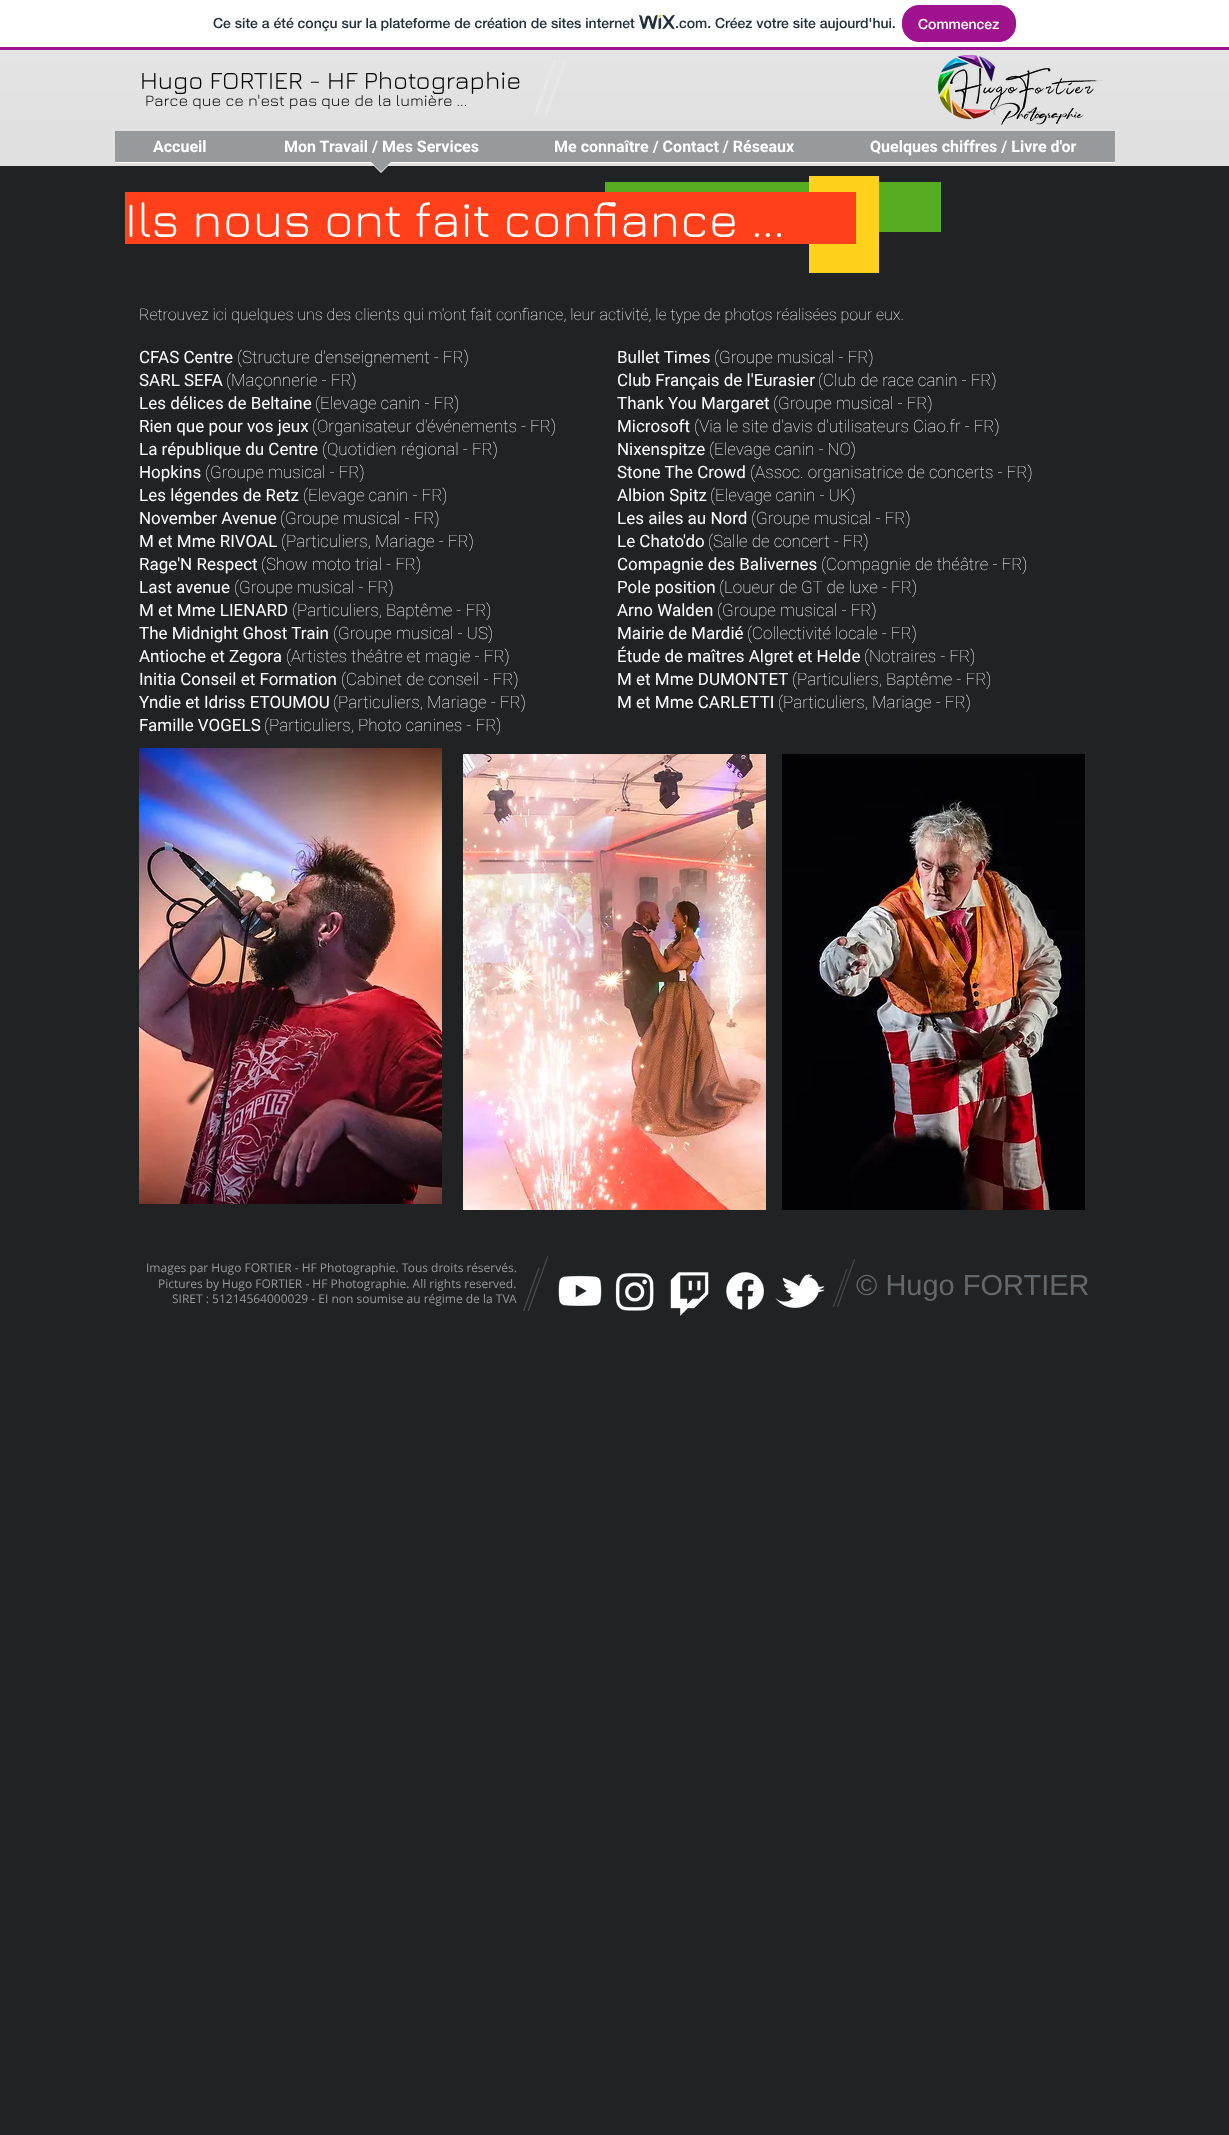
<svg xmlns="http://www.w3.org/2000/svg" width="1229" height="2135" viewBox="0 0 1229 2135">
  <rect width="100%" height="100%" fill="#202223"/>
  <path d="M0 0h1229v47H0z" fill="#fff"/>
  <path d="M0 47h1229v3H0z" fill="#a0138e"/>
  <image x="639" y="15" width="36" height="15" href="img/1.png"/>
  <rect x="902.5" y="5.5" width="113" height="36" rx="16.5" fill="#a0138e" stroke="#a0138e"/>
  <path d="M0 50h1229v116H0z" fill="#dbdbdb"/>
  <image x="0" y="50" width="1229" height="116" href="img/2.png"/>
  <image x="534" y="60" width="32" height="56" href="img/3.png"/>
  <image x="938" y="55" width="165" height="71" href="img/4.png"/>
  <path d="M115 131h1000v31H115z" fill="#969a9c"/>
  <path d="M115 162h1000v1H115z" fill="#fff"/>
  <path d="M370 162H392L381 173Z" fill="#fff"/>
  <path d="M371 162H391L381 172Z" fill="#969a9c"/>
  <path d="M605 182h336v50H605z" fill="#56ad21"/>
  <path d="M809 176h70v97H809z" fill="#ffd11a"/>
  <path d="M125 192h731v52H125z" fill="#ff401b"/>
  <image x="139" y="748" width="303" height="456" href="img/5.png"/>
  <image x="463" y="754" width="303" height="456" href="img/6.png"/>
  <image x="782" y="754" width="303" height="456" href="img/7.png"/>
  <image x="523" y="1256" width="25" height="55" href="img/8.png"/>
  <image x="558" y="1275" width="44" height="31" href="img/9.png"/>
  <image x="615" y="1273" width="39" height="38" href="img/10.png"/>
  <image x="670" y="1272" width="39" height="44" href="img/11.png"/>
  <image x="726" y="1272" width="38" height="38" href="img/12.png"/>
  <image x="775" y="1274" width="50" height="34" href="img/13.png"/>
  <image x="832" y="1258" width="23" height="49" href="img/14.png"/>
  <g font-family="'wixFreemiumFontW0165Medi'" font-size="14" font-weight="500" fill="#20303c">
    <text x="213" y="28">Ce site a été conçu sur la plateforme de création de sites internet</text>
    <text x="675" y="28">.com. Créez votre site aujourd'hui.</text>
  </g>
  <text x="918" y="29" font-family="'wixFreemiumFontW0165Medi'" font-size="14" font-weight="500" fill="#fff">Commencez</text>
  <text x="140" y="89" font-family="Jura" font-size="25" fill="#000">Hugo FORTIER - HF Photographie</text>
  <text x="145" y="106" font-family="Jura" font-size="16" fill="#000">Parce que ce n'est pas que de la lumière ...</text>
  <g font-family="Roboto" font-size="16" font-weight="bold" fill="#fff">
    <text x="153" y="152">Accueil</text>
    <text x="284" y="152">Mon Travail / Mes Services</text>
    <text x="554" y="152">Me connaître / Contact / Réseaux</text>
    <text x="870" y="152">Quelques chiffres / Livre d'or</text>
  </g>
  <text x="125" y="237" font-family="Jura" font-size="50" fill="#fff">Ils nous ont fait confiance ...</text>
  <text x="139" y="320" font-family="Roboto" font-size="16" font-weight="100" fill="#fff">Retrouvez ici quelques uns des clients qui m'ont fait confiance, leur activité, le type de photos réalisées pour eux.</text>
  <text x="139" y="363" font-family="Roboto" font-size="17" fill="#fff">CFAS Centre</text>
  <text x="237" y="363" font-family="Roboto" font-size="17" font-weight="100" fill="#fff">(Structure d'enseignement - FR)</text>
  <text x="139" y="386" font-family="Roboto" font-size="17" fill="#fff">SARL SEFA</text>
  <text x="226" y="386" font-family="Roboto" font-size="17" font-weight="100" fill="#fff">(Maçonnerie - FR)</text>
  <text x="139" y="409" font-family="Roboto" font-size="17" fill="#fff">Les délices de Beltaine</text>
  <text x="315" y="409" font-family="Roboto" font-size="17" font-weight="100" fill="#fff">(Elevage canin - FR)</text>
  <text x="139" y="432" font-family="Roboto" font-size="17" fill="#fff">Rien que pour vos jeux</text>
  <text x="312" y="432" font-family="Roboto" font-size="17" font-weight="100" fill="#fff">(Organisateur d'événements - FR)</text>
  <text x="139" y="455" font-family="Roboto" font-size="17" fill="#fff">La république du Centre</text>
  <text x="322" y="455" font-family="Roboto" font-size="17" font-weight="100" fill="#fff">(Quotidien régional - FR)</text>
  <text x="139" y="478" font-family="Roboto" font-size="17" fill="#fff">Hopkins</text>
  <text x="205" y="478" font-family="Roboto" font-size="17" font-weight="100" fill="#fff">(Groupe musical - FR)</text>
  <text x="139" y="501" font-family="Roboto" font-size="17" fill="#fff">Les légendes de Retz</text>
  <text x="303" y="501" font-family="Roboto" font-size="17" font-weight="100" fill="#fff">(Elevage canin - FR)</text>
  <text x="139" y="524" font-family="Roboto" font-size="17" fill="#fff">November Avenue</text>
  <text x="280" y="524" font-family="Roboto" font-size="17" font-weight="100" fill="#fff">(Groupe musical - FR)</text>
  <text x="139" y="547" font-family="Roboto" font-size="17" fill="#fff">M et Mme RIVOAL</text>
  <text x="281" y="547" font-family="Roboto" font-size="17" font-weight="100" fill="#fff">(Particuliers, Mariage - FR)</text>
  <text x="139" y="570" font-family="Roboto" font-size="17" fill="#fff">Rage'N Respect</text>
  <text x="261" y="570" font-family="Roboto" font-size="17" font-weight="100" fill="#fff">(Show moto trial - FR)</text>
  <text x="139" y="593" font-family="Roboto" font-size="17" fill="#fff">Last avenue</text>
  <text x="234" y="593" font-family="Roboto" font-size="17" font-weight="100" fill="#fff">(Groupe musical - FR)</text>
  <text x="139" y="616" font-family="Roboto" font-size="17" fill="#fff">M et Mme LIENARD</text>
  <text x="292" y="616" font-family="Roboto" font-size="17" font-weight="100" fill="#fff">(Particuliers, Baptême - FR)</text>
  <text x="139" y="639" font-family="Roboto" font-size="17" fill="#fff">The Midnight Ghost Train</text>
  <text x="333" y="639" font-family="Roboto" font-size="17" font-weight="100" fill="#fff">(Groupe musical - US)</text>
  <text x="139" y="662" font-family="Roboto" font-size="17" fill="#fff">Antioche et Zegora</text>
  <text x="286" y="662" font-family="Roboto" font-size="17" font-weight="100" fill="#fff">(Artistes théâtre et magie - FR)</text>
  <text x="139" y="685" font-family="Roboto" font-size="17" fill="#fff">Initia Conseil et Formation</text>
  <text x="341" y="685" font-family="Roboto" font-size="17" font-weight="100" fill="#fff">(Cabinet de conseil - FR)</text>
  <text x="139" y="708" font-family="Roboto" font-size="17" fill="#fff">Yndie et Idriss ETOUMOU</text>
  <text x="333" y="708" font-family="Roboto" font-size="17" font-weight="100" fill="#fff">(Particuliers, Mariage - FR)</text>
  <text x="139" y="731" font-family="Roboto" font-size="17" fill="#fff">Famille VOGELS</text>
  <text x="264" y="731" font-family="Roboto" font-size="17" font-weight="100" fill="#fff">(Particuliers, Photo canines - FR)</text>
  <text x="617" y="363" font-family="Roboto" font-size="17" fill="#fff">Bullet Times</text>
  <text x="714" y="363" font-family="Roboto" font-size="17" font-weight="100" fill="#fff">(Groupe musical - FR)</text>
  <text x="617" y="386" font-family="Roboto" font-size="17" fill="#fff">Club Français de l'Eurasier</text>
  <text x="818" y="386" font-family="Roboto" font-size="17" font-weight="100" fill="#fff">(Club de race canin - FR)</text>
  <text x="617" y="409" font-family="Roboto" font-size="17" fill="#fff">Thank You Margaret</text>
  <text x="773" y="409" font-family="Roboto" font-size="17" font-weight="100" fill="#fff">(Groupe musical - FR)</text>
  <text x="617" y="432" font-family="Roboto" font-size="17" fill="#fff">Microsoft</text>
  <text x="694" y="432" font-family="Roboto" font-size="17" font-weight="100" fill="#fff">(Via le site d'avis d'utilisateurs Ciao.fr - FR)</text>
  <text x="617" y="455" font-family="Roboto" font-size="17" fill="#fff">Nixenspitze</text>
  <text x="709" y="455" font-family="Roboto" font-size="17" font-weight="100" fill="#fff">(Elevage canin - NO)</text>
  <text x="617" y="478" font-family="Roboto" font-size="17" fill="#fff">Stone The Crowd</text>
  <text x="750" y="478" font-family="Roboto" font-size="17" font-weight="100" fill="#fff">(Assoc. organisatrice de concerts - FR)</text>
  <text x="617" y="501" font-family="Roboto" font-size="17" fill="#fff">Albion Spitz</text>
  <text x="710" y="501" font-family="Roboto" font-size="17" font-weight="100" fill="#fff">(Elevage canin - UK)</text>
  <text x="617" y="524" font-family="Roboto" font-size="17" fill="#fff">Les ailes au Nord</text>
  <text x="751" y="524" font-family="Roboto" font-size="17" font-weight="100" fill="#fff">(Groupe musical - FR)</text>
  <text x="617" y="547" font-family="Roboto" font-size="17" fill="#fff">Le Chato'do</text>
  <text x="708" y="547" font-family="Roboto" font-size="17" font-weight="100" fill="#fff">(Salle de concert - FR)</text>
  <text x="617" y="570" font-family="Roboto" font-size="17" fill="#fff">Compagnie des Balivernes</text>
  <text x="821" y="570" font-family="Roboto" font-size="17" font-weight="100" fill="#fff">(Compagnie de théâtre - FR)</text>
  <text x="617" y="593" font-family="Roboto" font-size="17" fill="#fff">Pole position</text>
  <text x="719" y="593" font-family="Roboto" font-size="17" font-weight="100" fill="#fff">(Loueur de GT de luxe - FR)</text>
  <text x="617" y="616" font-family="Roboto" font-size="17" fill="#fff">Arno Walden</text>
  <text x="717" y="616" font-family="Roboto" font-size="17" font-weight="100" fill="#fff">(Groupe musical - FR)</text>
  <text x="617" y="639" font-family="Roboto" font-size="17" fill="#fff">Mairie de Mardié</text>
  <text x="747" y="639" font-family="Roboto" font-size="17" font-weight="100" fill="#fff">(Collectivité locale - FR)</text>
  <text x="617" y="662" font-family="Roboto" font-size="17" fill="#fff">Étude de maîtres Algret et Helde</text>
  <text x="864" y="662" font-family="Roboto" font-size="17" font-weight="100" fill="#fff">(Notraires - FR)</text>
  <text x="617" y="685" font-family="Roboto" font-size="17" fill="#fff">M et Mme DUMONTET</text>
  <text x="792" y="685" font-family="Roboto" font-size="17" font-weight="100" fill="#fff">(Particuliers, Baptême - FR)</text>
  <text x="617" y="708" font-family="Roboto" font-size="17" fill="#fff">M et Mme CARLETTI</text>
  <text x="778" y="708" font-family="Roboto" font-size="17" font-weight="100" fill="#fff">(Particuliers, Mariage - FR)</text>
  <g font-family="Open Sans" font-size="12" fill="#969a9c">
    <text x="146" y="1272">Images par Hugo FORTIER - HF Photographie. Tous droits réservés.</text>
    <text x="158" y="1288">Pictures by Hugo FORTIER - HF Photographie. All rights reserved.</text>
    <text x="172" y="1303">SIRET : 51214564000029 - EI non soumise au régime de la TVA</text>
  </g>
  <text x="856" y="1295" font-family="Liberation Sans" font-size="29" fill="#62686b">© Hugo FORTIER</text>
</svg>
